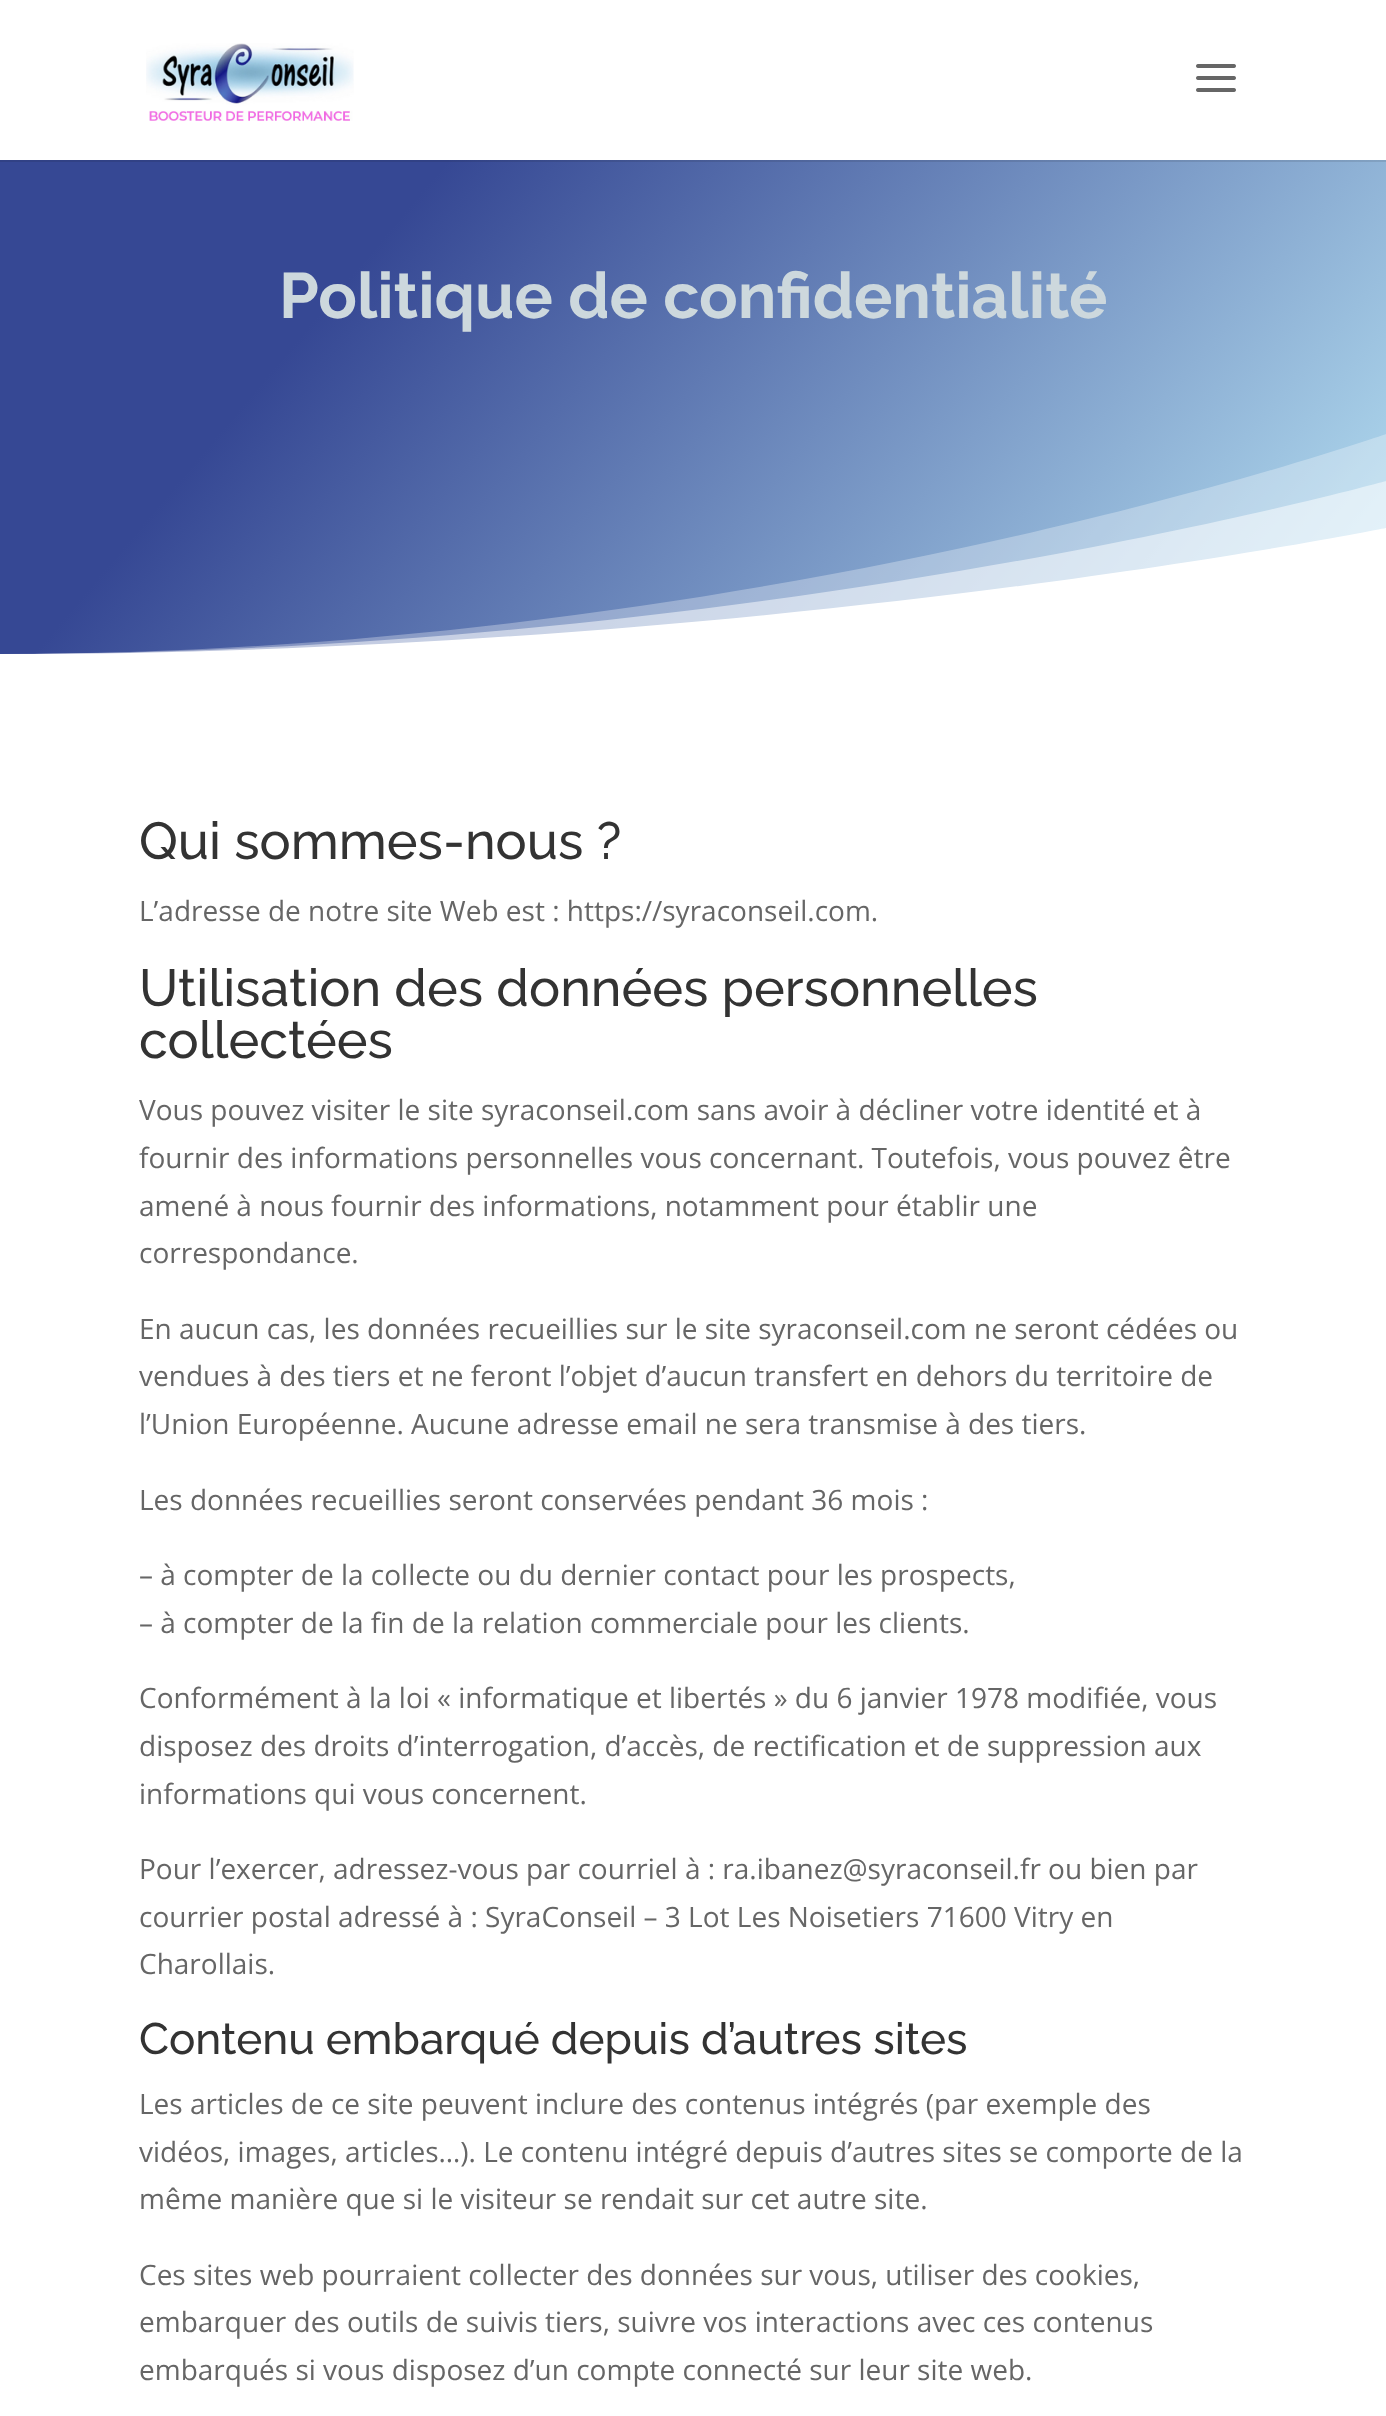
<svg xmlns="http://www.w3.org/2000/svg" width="1386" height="2416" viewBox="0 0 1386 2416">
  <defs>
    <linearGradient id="g1" gradientUnits="userSpaceOnUse" x1="164" y1="-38" x2="1222" y2="850"><stop offset="0.25" stop-color="#364894"/><stop offset="1" stop-color="#b8e3f4"/></linearGradient>
    <linearGradient id="g2" gradientUnits="userSpaceOnUse" x1="164" y1="-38" x2="1222" y2="850"><stop offset="0.25" stop-color="#314185"/><stop offset="1" stop-color="#a6ccdc"/></linearGradient>
  </defs>
  <rect width="100%" height="100%" fill="#fff"/>
  <image x="146" y="43" width="208" height="78" href="img/1.png"/>
  <image x="1196" y="64" width="40" height="28" href="img/2.png"/>
  <path d="M0 162h1386v492H0z" fill="url(#g1)"/>
  <path d="M0 160h1386v2H0z" fill="url(#g2)"/>
  <path d="M1386 654H0C765 654 1386 434 1386 434Z" fill="#ffffff4d"/>
  <path d="M1386 654H0C765 654 1386 481 1386 481Z" fill="#ffffff80"/>
  <path d="M1386 654H0C765 654 1386 528 1386 528Z" fill="#fff"/>
  <text x="279" y="318" font-family="'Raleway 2'" font-size="64" font-weight="100" fill="#cdd8dd">Politique de confidentialité</text>
  <text x="139" y="859" font-family="Raleway" font-size="52" font-weight="100" fill="#333">Qui sommes-nous ?</text>
  <text x="139" y="921" font-family="Open Sans" font-size="28" fill="#666">L’adresse de notre site Web est : https://syraconseil.com.</text>
  <g font-family="Raleway" font-size="52" font-weight="100" fill="#333">
    <text x="139" y="1006">Utilisation des données personnelles</text>
    <text x="139" y="1058">collectées</text>
  </g>
  <g font-family="Open Sans" font-size="28" fill="#666">
    <text x="139" y="1120">Vous pouvez visiter le site syraconseil.com sans avoir à décliner votre identité et à</text>
    <text x="139" y="1168">fournir des informations personnelles vous concernant. Toutefois, vous pouvez être</text>
    <text x="139" y="1216">amené à nous fournir des informations, notamment pour établir une</text>
    <text x="139" y="1263">correspondance.</text>
    <text x="139" y="1339">En aucun cas, les données recueillies sur le site syraconseil.com ne seront cédées ou</text>
    <text x="139" y="1386">vendues à des tiers et ne feront l’objet d’aucun transfert en dehors du territoire de</text>
    <text x="139" y="1434">l’Union Européenne. Aucune adresse email ne sera transmise à des tiers.</text>
    <text x="139" y="1510">Les données recueillies seront conservées pendant 36 mois :</text>
    <text x="139" y="1585">– à compter de la collecte ou du dernier contact pour les prospects,</text>
    <text x="139" y="1633">– à compter de la fin de la relation commerciale pour les clients.</text>
    <text x="139" y="1708">Conformément à la loi « informatique et libertés » du 6 janvier 1978 modifiée, vous</text>
    <text x="139" y="1756">disposez des droits d’interrogation, d’accès, de rectification et de suppression aux</text>
    <text x="139" y="1804">informations qui vous concernent.</text>
    <text x="139" y="1879">Pour l’exercer, adressez-vous par courriel à : ra.ibanez@syraconseil.fr ou bien par</text>
    <text x="139" y="1927">courrier postal adressé à : SyraConseil – 3 Lot Les Noisetiers 71600 Vitry en</text>
    <text x="139" y="1974">Charollais.</text>
  </g>
  <text x="139" y="2054" font-family="Raleway" font-size="44" font-weight="100" fill="#333">Contenu embarqué depuis d’autres sites</text>
  <g font-family="Open Sans" font-size="28" fill="#666">
    <text x="139" y="2114">Les articles de ce site peuvent inclure des contenus intégrés (par exemple des</text>
    <text x="139" y="2162">vidéos, images, articles…). Le contenu intégré depuis d’autres sites se comporte de la</text>
    <text x="139" y="2209">même manière que si le visiteur se rendait sur cet autre site.</text>
    <text x="139" y="2285">Ces sites web pourraient collecter des données sur vous, utiliser des cookies,</text>
    <text x="139" y="2332">embarquer des outils de suivis tiers, suivre vos interactions avec ces contenus</text>
    <text x="139" y="2380">embarqués si vous disposez d’un compte connecté sur leur site web.</text>
  </g>
</svg>
